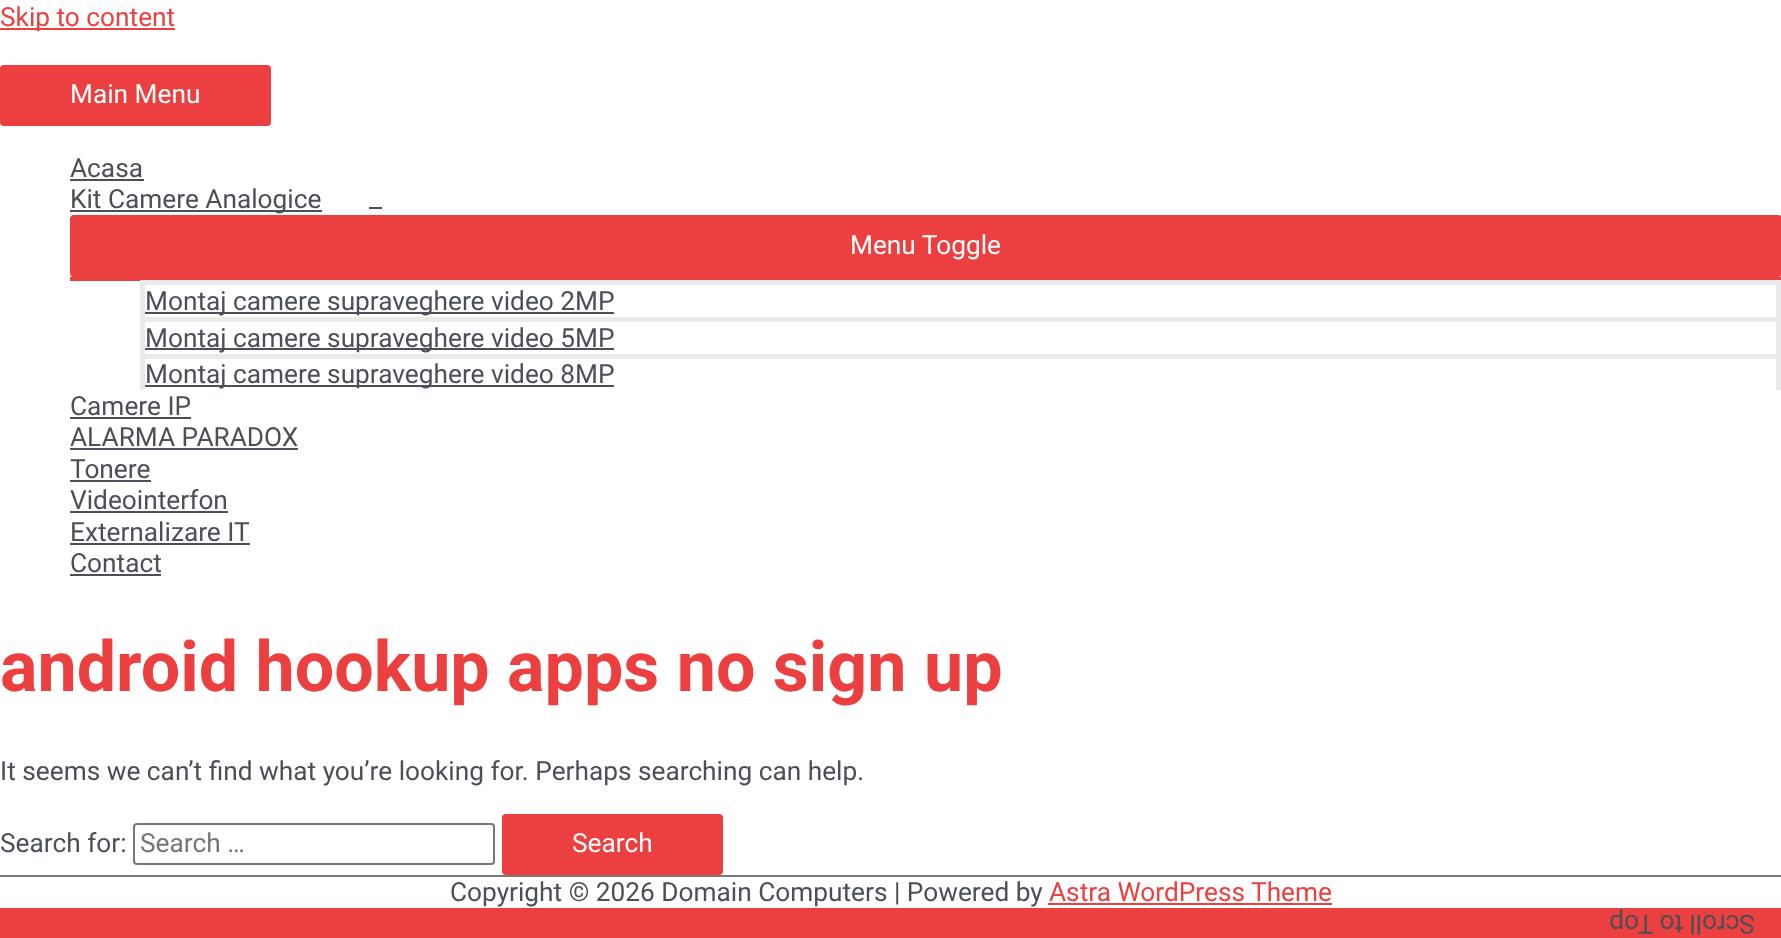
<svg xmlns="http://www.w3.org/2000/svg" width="1781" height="938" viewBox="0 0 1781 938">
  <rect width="100%" height="100%" fill="#fff"/>
  <path d="M0 28h175v2H0z" fill="#ec4040"/>
  <rect y="65" width="271" height="61" rx="4" fill="#ec4040"/>
  <path d="M70 179h74v2H70z" fill="#4b4f58"/>
  <path d="M70 210h252v2H70z" fill="#4b4f58"/>
  <path d="M369 207h13v2H369z" fill="#4b4f58"/>
  <rect x="70" y="215" width="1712" height="62" rx="4" fill="#ec4040"/>
  <path d="M70 277h1711v4H70z" fill="#ec4040"/>
  <path d="M140 280h1641v5H140z" fill="#eaeaea"/>
  <path d="M1776 280h5v37H1776z" fill="#eaeaea"/>
  <path d="M140 280h5v37H140z" fill="#eaeaea"/>
  <path d="M145 312h469v2H145z" fill="#4b4f58"/>
  <path d="M140 317h1641v5H140z" fill="#eaeaea"/>
  <path d="M1776 317h5v37H1776z" fill="#eaeaea"/>
  <path d="M140 317h5v37H140z" fill="#eaeaea"/>
  <path d="M145 348h469v2H145z" fill="#4b4f58"/>
  <path d="M140 354h1641v5H140z" fill="#eaeaea"/>
  <path d="M1776 354h5v36H1776z" fill="#eaeaea"/>
  <path d="M140 354h5v36H140z" fill="#eaeaea"/>
  <path d="M145 385h469v2H145z" fill="#4b4f58"/>
  <path d="M70 417h121v2H70z" fill="#4b4f58"/>
  <path d="M70 448h228v2H70z" fill="#4b4f58"/>
  <path d="M70 480h81v2H70z" fill="#4b4f58"/>
  <path d="M70 511h158v2H70z" fill="#4b4f58"/>
  <path d="M70 543h180v2H70z" fill="#4b4f58"/>
  <path d="M70 574h91v2H70z" fill="#4b4f58"/>
  <rect x="134" y="824" width="360" height="40" rx="3" fill="none" stroke="#767676" stroke-width="2"/>
  <rect x="502" y="814" width="221" height="61" rx="4" fill="#ec4040"/>
  <path d="M0 875h1781v2H0z" fill="#7a7a7a"/>
  <path d="M1048 903h284v2H1048z" fill="#ec4040"/>
  <path d="M0 908h1781v30H0z" fill="#ec4040"/>
  <text x="0" y="26" font-family="Roboto" font-size="26.25" fill="#ec4040">Skip to content</text>
  <text x="70" y="103" font-family="Roboto" font-size="26.25" fill="#fff">Main Menu</text>
  <g font-family="Roboto" font-size="26.25" fill="#4b4f58">
    <text x="70" y="177">Acasa</text>
    <text x="70" y="208">Kit Camere Analogice</text>
  </g>
  <text x="850" y="254" font-family="Roboto" font-size="26.25" fill="#fff">Menu Toggle</text>
  <g font-family="Roboto" font-size="26.25" fill="#4b4f58">
    <text x="145" y="310">Montaj camere supraveghere video 2MP</text>
    <text x="145" y="347">Montaj camere supraveghere video 5MP</text>
    <text x="145" y="383">Montaj camere supraveghere video 8MP</text>
    <text x="70" y="415">Camere IP</text>
    <text x="70" y="446">ALARMA PARADOX</text>
    <text x="70" y="478">Tonere</text>
    <text x="70" y="509">Videointerfon</text>
    <text x="70" y="541">Externalizare IT</text>
    <text x="70" y="572">Contact</text>
  </g>
  <text x="0" y="691" font-family="Roboto" font-size="70" font-weight="bold" fill="#ec4040">android hookup apps no sign up</text>
  <g font-family="Roboto" font-size="26.25" fill="#4b4f58">
    <text x="0" y="780">It seems we can’t find what you’re looking for. Perhaps searching can help.</text>
    <text x="0" y="852">Search for:</text>
  </g>
  <text x="140" y="852" font-family="Roboto" font-size="26.25" fill="#757575">Search …</text>
  <text x="572" y="852" font-family="Roboto" font-size="26.25" fill="#fff">Search</text>
  <text x="450" y="901" font-family="Roboto" font-size="26.25" fill="#4b4f58">Copyright © 2026 Domain Computers | Powered by</text>
  <text x="1049" y="901" font-family="Roboto" font-size="26.25" fill="#ec4040">Astra WordPress Theme</text>
  <text x="1755" y="915" transform="rotate(180 1755 915)" font-family="Roboto" font-size="26.25" fill="#4b4f58">Scroll to Top</text>
</svg>
